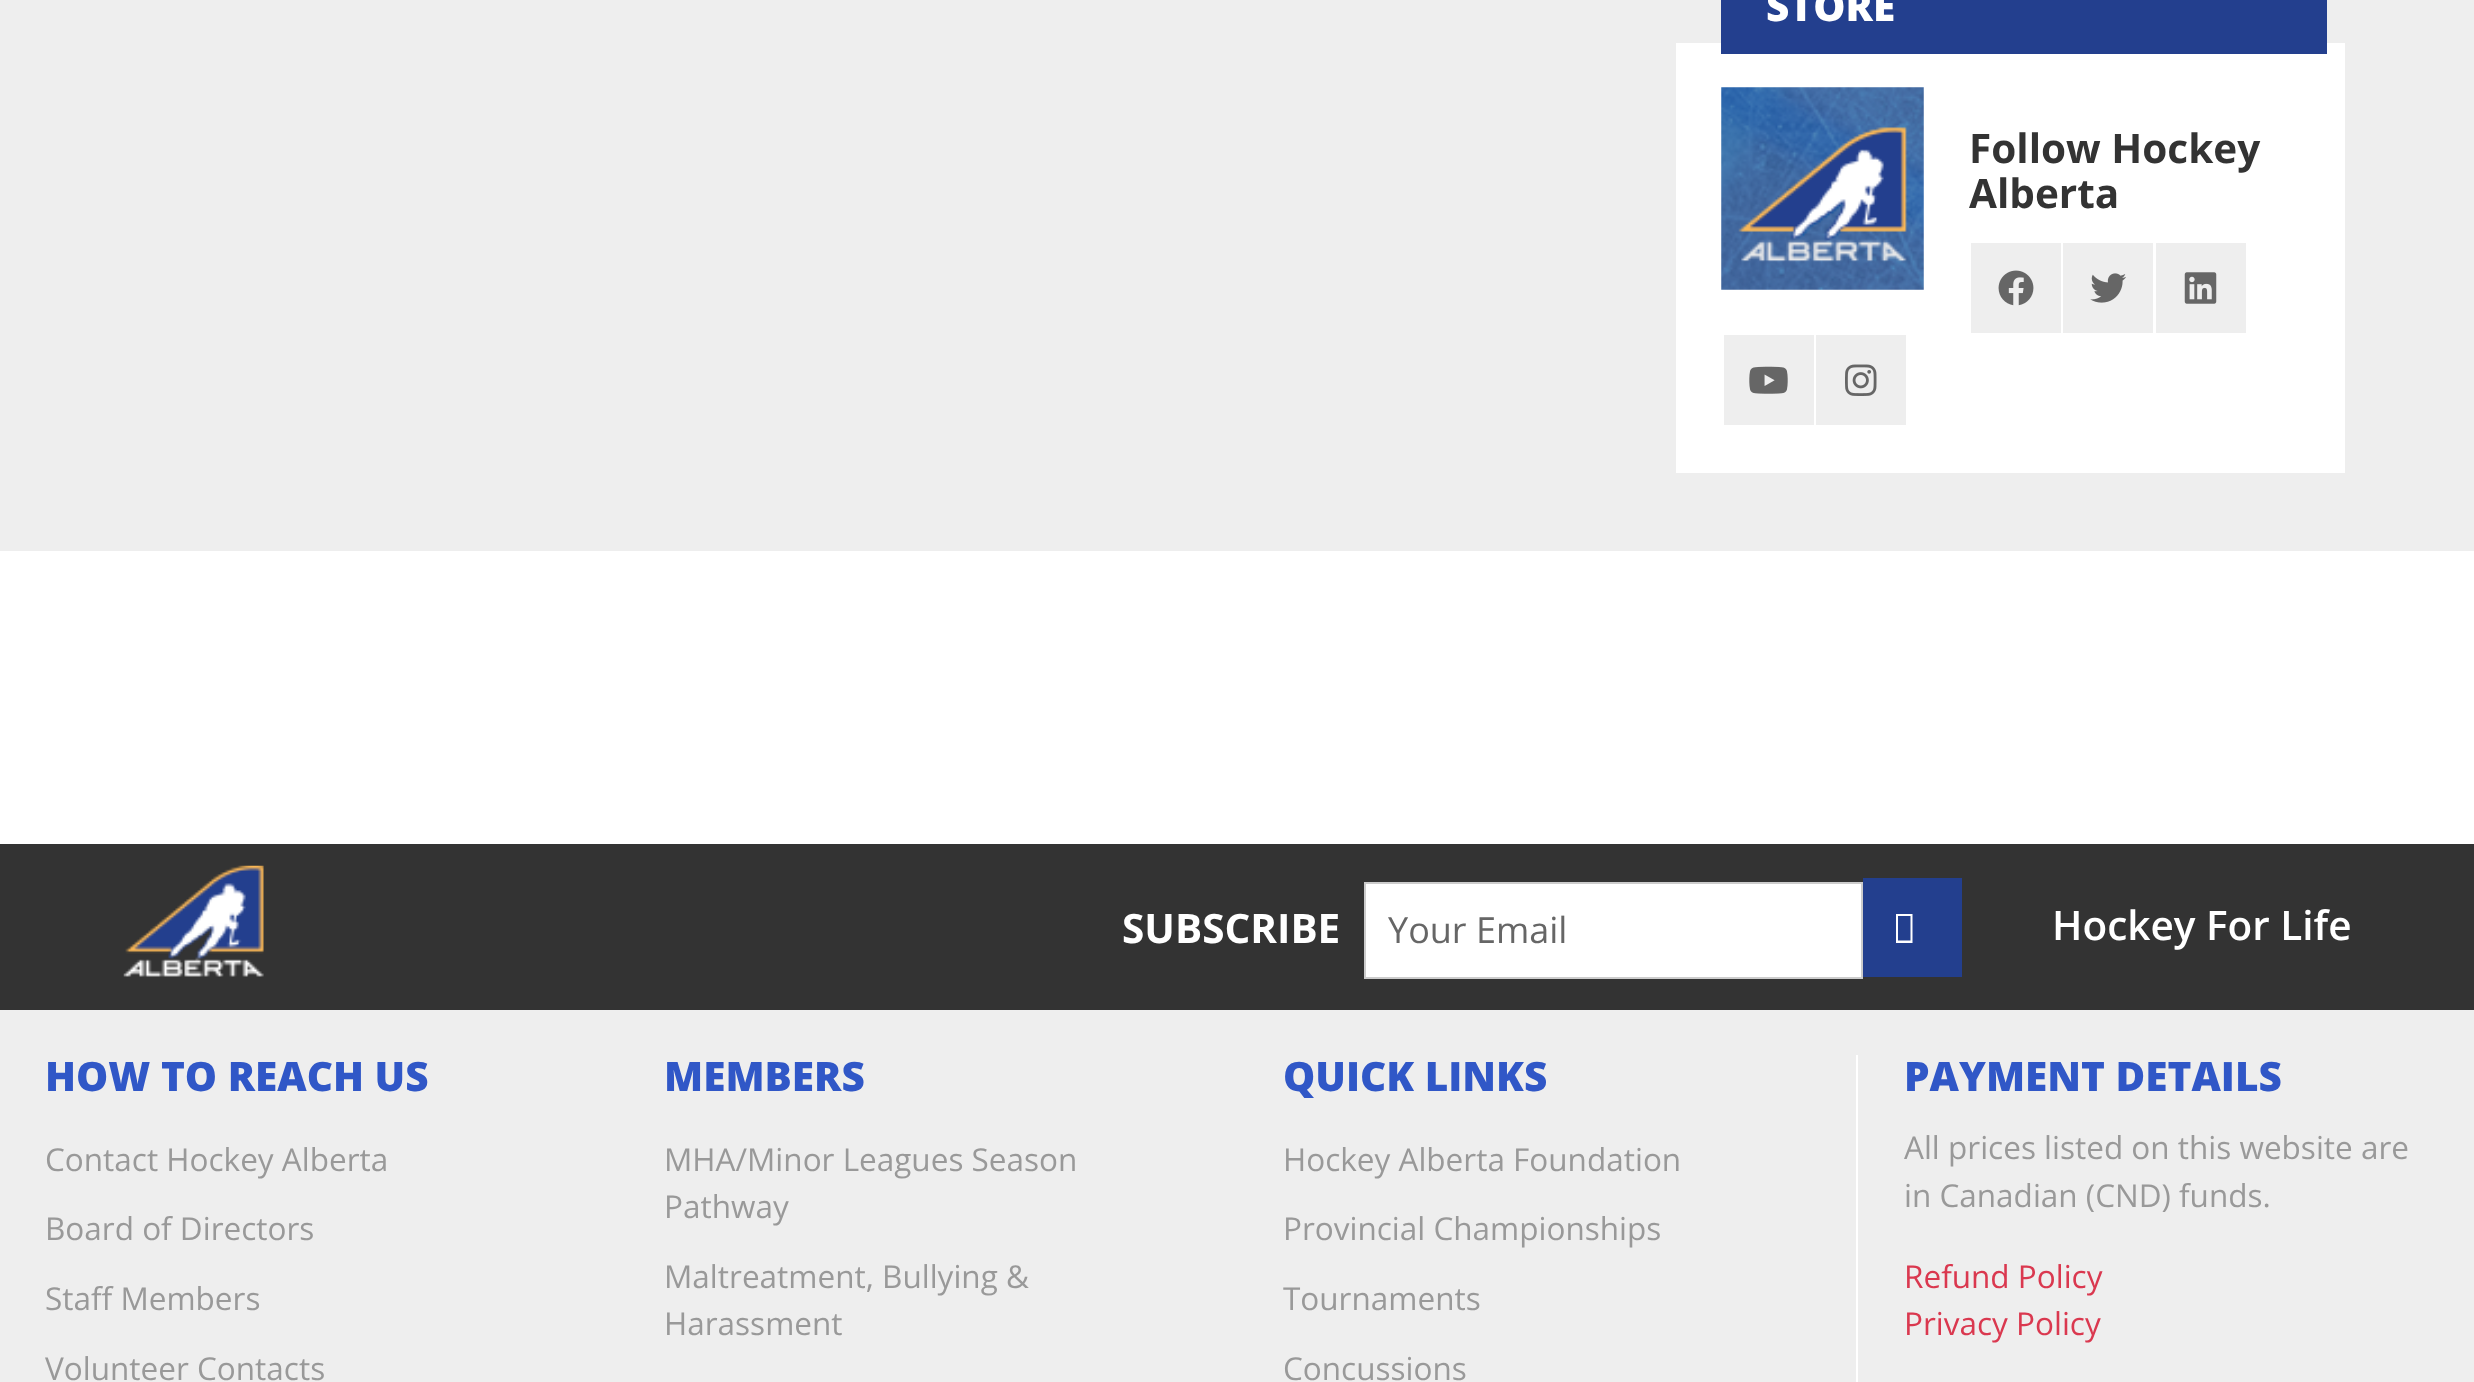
<svg xmlns="http://www.w3.org/2000/svg" width="2474" height="1382" viewBox="0 0 2474 1382">
  <rect width="100%" height="100%" fill="#eee"/>
  <path d="M1676 43h669v430H1676z" fill="#fff"/>
  <path d="M1721 0h606v54H1721z" fill="#233f8e"/>
  <image x="1721" y="87" width="203" height="203" href="img/1.png"/>
  <path d="M1971 243h90v90H1971z" fill="#eee"/>
  <image x="1998" y="270" width="36" height="36" href="img/2.png"/>
  <path d="M2063 243h90v90H2063z" fill="#eee"/>
  <image x="2090" y="273" width="36" height="30" href="img/3.png"/>
  <path d="M2156 243h90v90H2156z" fill="#eee"/>
  <image x="2184" y="272" width="33" height="32" href="img/4.png"/>
  <path d="M1724 335h90v90H1724z" fill="#eee"/>
  <image x="1749" y="366" width="39" height="28" href="img/5.png"/>
  <path d="M1816 335h90v90H1816z" fill="#eee"/>
  <image x="1845" y="364" width="32" height="32" href="img/6.png"/>
  <path d="M0 551h2474v293H0z" fill="#fff"/>
  <path d="M0 844h2474v166H0z" fill="#333"/>
  <image x="123" y="865" width="141" height="112" href="img/7.png"/>
  <path d="M1365 883h497v95H1365z" fill="#fff" stroke="#ccc" stroke-width="2"/>
  <path d="M1863 878h99v99H1863z" fill="#233f8e"/>
  <path d="M1896 943V914H1912.5V943ZM1898 940.5H1910.5V916H1898Z" fill="#fff"/>
  <path d="M1856 1055h2v327H1856z" fill="#fff"/>
  <text x="1766" y="21" font-family="Open Sans" font-size="40.5" font-weight="800" fill="#fff">STORE</text>
  <g font-family="Open Sans" font-size="40.5" font-weight="bold" fill="#333">
    <text x="1969" y="163">Follow Hockey</text>
    <text x="1969" y="208">Alberta</text>
  </g>
  <text x="1122" y="943" font-family="Open Sans" font-size="40.5" font-weight="bold" fill="#fff">SUBSCRIBE</text>
  <text x="1388" y="943" font-family="Open Sans" font-size="36" fill="#666">Your Email</text>
  <text x="2052" y="940" font-family="Open Sans" font-size="40.5" font-weight="600" fill="#fff">Hockey For Life</text>
  <text x="45" y="1091" font-family="Open Sans" font-size="40.5" font-weight="800" fill="#3057c7">HOW TO REACH US</text>
  <g font-family="Open Sans" font-size="31.5" fill="#999">
    <text x="45" y="1171">Contact Hockey Alberta</text>
    <text x="45" y="1240">Board of Directors</text>
    <text x="45" y="1310">Staff Members</text>
    <text x="45" y="1380">Volunteer Contacts</text>
  </g>
  <text x="664" y="1091" font-family="Open Sans" font-size="40.5" font-weight="800" fill="#3057c7">MEMBERS</text>
  <g font-family="Open Sans" font-size="31.5" fill="#999">
    <text x="664" y="1171">MHA/Minor Leagues Season</text>
    <text x="664" y="1218">Pathway</text>
    <text x="664" y="1288">Maltreatment, Bullying &amp;</text>
    <text x="664" y="1335">Harassment</text>
  </g>
  <text x="1283" y="1091" font-family="Open Sans" font-size="40.5" font-weight="800" fill="#3057c7">QUICK LINKS</text>
  <g font-family="Open Sans" font-size="31.5" fill="#999">
    <text x="1283" y="1171">Hockey Alberta Foundation</text>
    <text x="1283" y="1240">Provincial Championships</text>
    <text x="1283" y="1310">Tournaments</text>
    <text x="1283" y="1380">Concussions</text>
  </g>
  <text x="1904" y="1091" font-family="Open Sans" font-size="40.5" font-weight="800" fill="#3057c7">PAYMENT DETAILS</text>
  <g font-family="Open Sans" font-size="31.5" fill="#999">
    <text x="1904" y="1159">All prices listed on this website are</text>
    <text x="1904" y="1207">in Canadian (CND) funds.</text>
  </g>
  <g font-family="Open Sans" font-size="31.5" fill="#da384f">
    <text x="1904" y="1288">Refund Policy</text>
    <text x="1904" y="1335">Privacy Policy</text>
  </g>
</svg>
